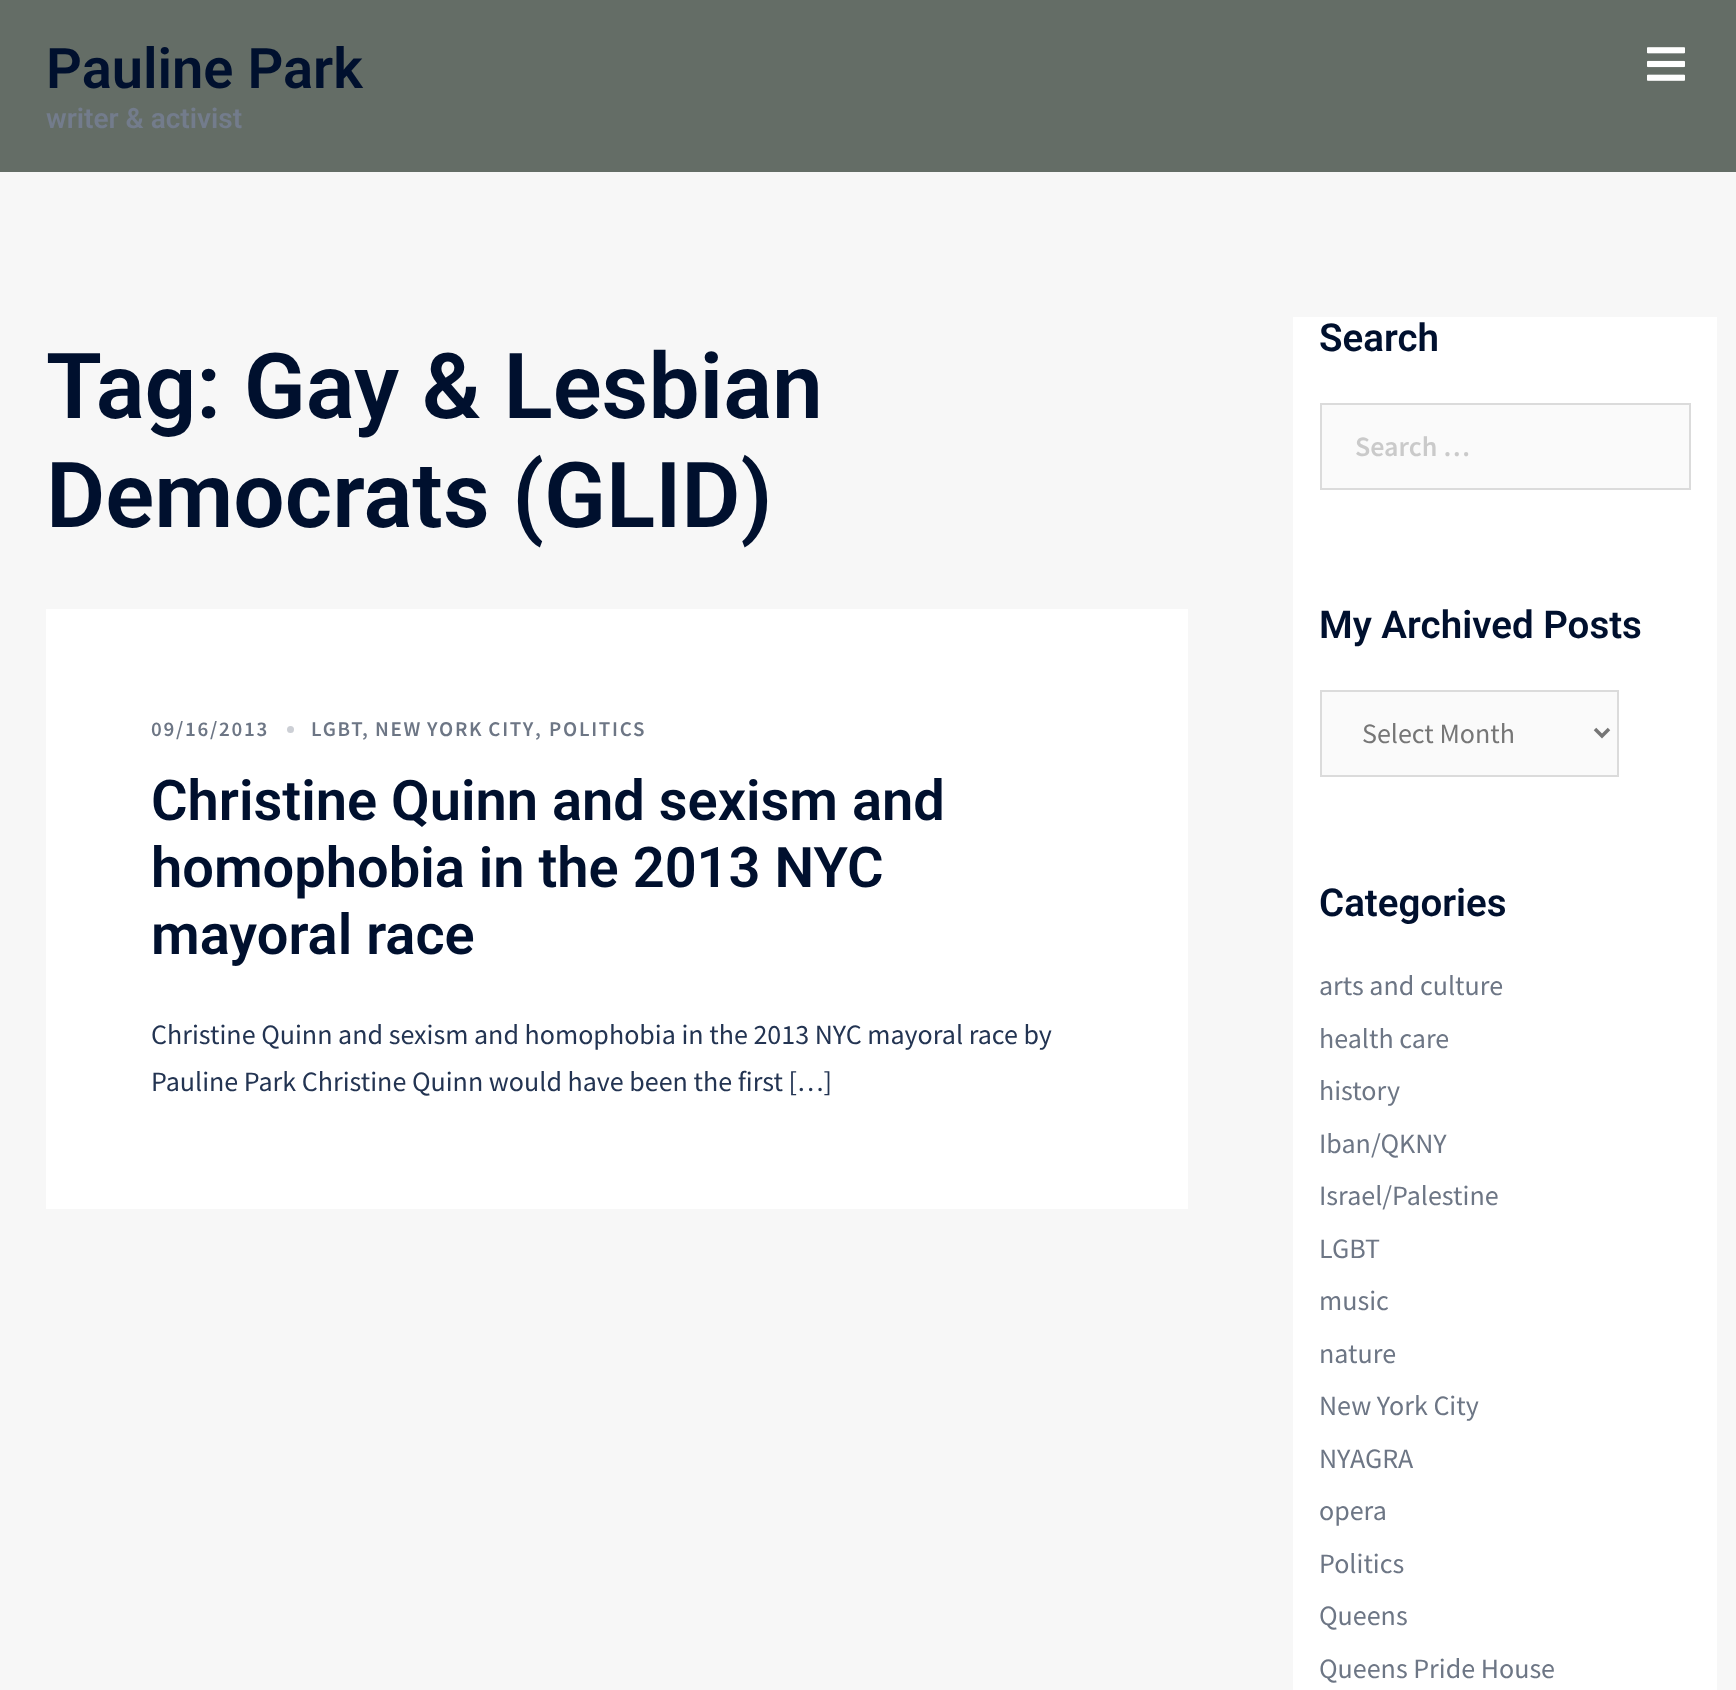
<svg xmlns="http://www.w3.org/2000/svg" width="1736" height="1690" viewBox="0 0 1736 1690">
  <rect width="100%" height="100%" fill="#f7f7f7"/>
  <path d="M0 0h1736v172H0z" fill="#646d66"/>
  <image x="1647" y="47" width="38" height="34" href="img/1.png"/>
  <path d="M46 609h1142v600H46z" fill="#fff"/>
  <circle cx="290.5" cy="729.5" r="3.5" fill="#cccfd5"/>
  <path d="M1293 317h424v1373H1293z" fill="#fff"/>
  <path d="M1321 404h369v85H1321z" fill="#fafafa" stroke="#dbdbdb" stroke-width="2"/>
  <path d="M1321 691h297v85H1321z" fill="#fafafa" stroke="#dbdbdb" stroke-width="2"/>
  <path d="M1595 729L1602 736L1609 729" fill="none" stroke="#767676" stroke-width="3.5"/>
  <text x="46" y="88" font-family="Roboto" font-size="56" font-weight="600" fill="#00102e">Pauline Park</text>
  <text x="46" y="128" font-family="Roboto" font-size="28" font-weight="600" fill="#737c8c">writer &amp; activist</text>
  <g font-family="Roboto" font-size="91" font-weight="600" fill="#00102e">
    <text x="46" y="418">Tag: Gay &amp; Lesbian</text>
    <text x="46" y="527">Democrats (GLID)</text>
  </g>
  <g font-family="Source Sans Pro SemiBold" font-size="21" font-weight="600" letter-spacing="1.75" fill="#6d7685">
    <text x="151" y="736">09/16/2013</text>
    <text x="311" y="736">LGBT</text>
  </g>
  <text x="362" y="736" font-family="Source Sans Pro SemiBold" font-size="21" font-weight="600" letter-spacing="1.75" fill="#737c8c">,</text>
  <text x="375" y="736" word-spacing="-1" font-family="Source Sans Pro SemiBold" font-size="21" font-weight="600" letter-spacing="1.75" fill="#6d7685">NEW YORK CITY</text>
  <text x="535" y="736" font-family="Source Sans Pro SemiBold" font-size="21" font-weight="600" letter-spacing="1.75" fill="#737c8c">,</text>
  <text x="549" y="736" font-family="Source Sans Pro SemiBold" font-size="21" font-weight="600" letter-spacing="1.75" fill="#6d7685">POLITICS</text>
  <g font-family="Roboto" font-size="56" font-weight="600" fill="#00102e">
    <text x="151" y="820">Christine Quinn and sexism and</text>
    <text x="151" y="887">homophobia in the 2013 NYC</text>
    <text x="151" y="954">mayoral race</text>
  </g>
  <g font-family="Source Sans Pro" font-size="28" fill="#233452">
    <text x="151" y="1044">Christine Quinn and sexism and homophobia in the 2013 NYC mayoral race by</text>
    <text x="151" y="1091">Pauline Park Christine Quinn would have been the first […]</text>
  </g>
  <text x="1319" y="351" font-family="Roboto" font-size="38.5" font-weight="600" fill="#00102e">Search</text>
  <text x="1355" y="456" font-family="Source Sans Pro SemiBold" font-size="28" font-weight="600" fill="#cacaca">Search …</text>
  <text x="1319" y="638" font-family="Roboto" font-size="38.5" font-weight="600" fill="#00102e">My Archived Posts</text>
  <text x="1362" y="743" font-family="Source Sans Pro" font-size="28" fill="#767676">Select Month</text>
  <text x="1319" y="916" font-family="Roboto" font-size="38.5" font-weight="600" fill="#00102e">Categories</text>
  <g font-family="Source Sans Pro" font-size="28" fill="#6d7685">
    <text x="1319" y="995">arts and culture</text>
    <text x="1319" y="1048">health care</text>
    <text x="1319" y="1100">history</text>
    <text x="1319" y="1153">Iban/QKNY</text>
    <text x="1319" y="1205">Israel/Palestine</text>
    <text x="1319" y="1258">LGBT</text>
    <text x="1319" y="1310">music</text>
    <text x="1319" y="1363">nature</text>
    <text x="1319" y="1415">New York City</text>
    <text x="1319" y="1468">NYAGRA</text>
    <text x="1319" y="1520">opera</text>
    <text x="1319" y="1573">Politics</text>
    <text x="1319" y="1625">Queens</text>
    <text x="1319" y="1678">Queens Pride House</text>
  </g>
</svg>
